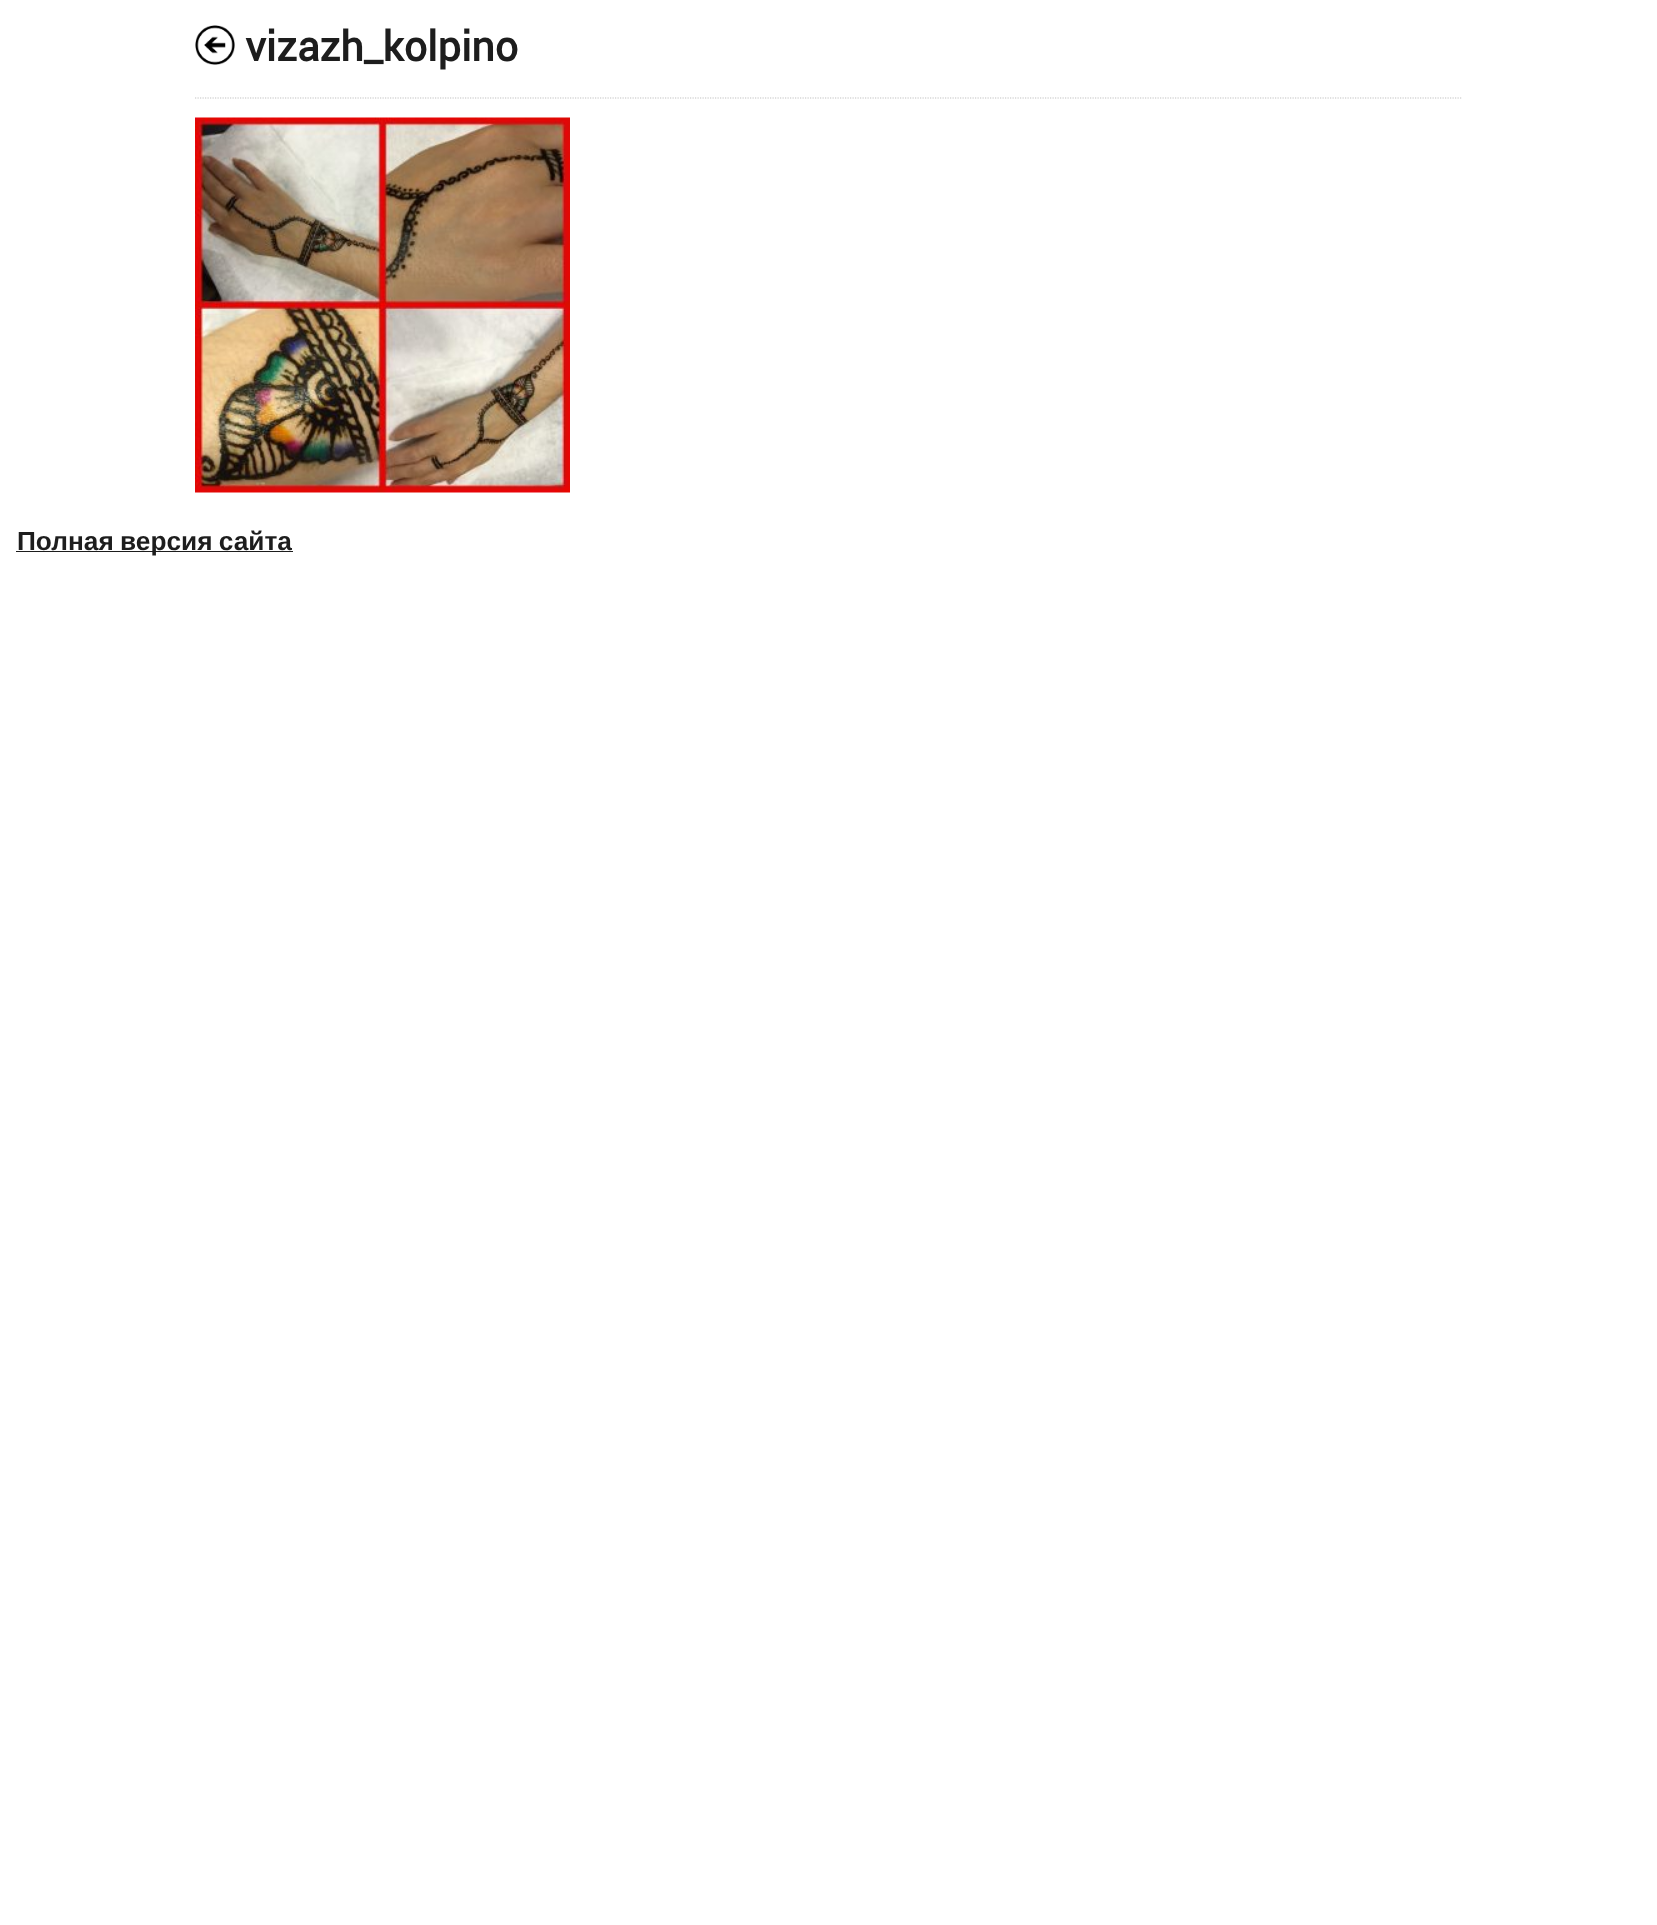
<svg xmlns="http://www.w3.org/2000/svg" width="1657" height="1925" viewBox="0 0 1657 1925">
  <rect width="100%" height="100%" fill="#fff"/>
  <image x="195" y="25" width="40" height="40" href="img/1.png"/>
  <path d="M195 98H1462.5" fill="none" stroke="#c2c2c2" stroke-width="1.2" stroke-dasharray="1.25 1.25"/>
  <image x="195" y="117" width="375" height="376" href="img/2.png"/>
  <path d="M16 551h277v1H16z" fill="#1d1d1d"/>
  <text x="245" y="61" font-family="Roboto" font-size="41.25" font-weight="bold" fill="#1d1d1d">vizazh_kolpino</text>
  <text x="17" y="550" word-spacing="-1" font-family="Liberation Sans" font-size="26.25" font-weight="bold" fill="#1d1d1d">Полная версия сайта</text>
</svg>
